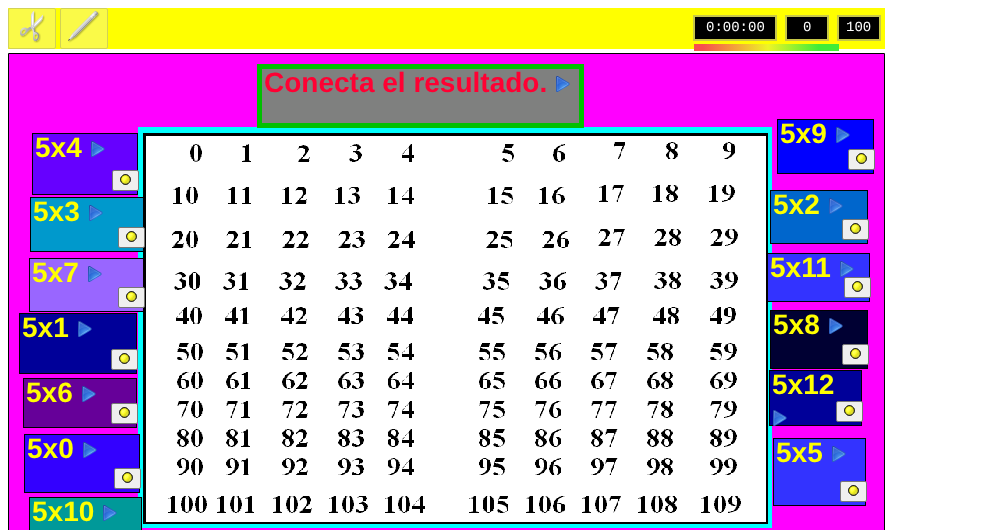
<svg xmlns="http://www.w3.org/2000/svg" width="992" height="530" viewBox="0 0 992 530">
  <defs>
    <linearGradient id="g1" gradientUnits="userSpaceOnUse" x1="694" y1="51" x2="839" y2="51"><stop offset="0.06" stop-color="#f74f4f"/><stop offset="0.51" stop-color="#eef527"/><stop offset="0.86" stop-color="#41ec38"/></linearGradient>
  </defs>
  <rect width="100%" height="100%" fill="#fff"/>
  <path d="M8 8h877v41H8z" fill="#ff0"/>
  <rect x="8" y="8" width="48" height="41" rx="2" fill="#fafa48"/>
  <rect x="8.5" y="8.5" width="47" height="40" rx="1.5" fill="none" stroke="#7676764d"/>
  <image x="20" y="11" width="25" height="32" href="img/1.png"/>
  <rect x="60" y="8" width="48" height="41" rx="2" fill="#fafa48"/>
  <rect x="60.5" y="8.5" width="47" height="40" rx="1.5" fill="none" stroke="#7676764d"/>
  <image x="68" y="11" width="32" height="32" href="img/2.png"/>
  <path d="M694 16h82v24H694z" fill="#000" stroke="#c7c747" stroke-width="2"/>
  <path d="M786 16h42v24H786z" fill="#000" stroke="#c7c747" stroke-width="2"/>
  <path d="M838 16h42v24H838z" fill="#000" stroke="#c7c747" stroke-width="2"/>
  <path d="M694 44h145v7H694z" fill="url(#g1)"/>
  <path d="M8.5 53.5h876v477H8.5z" fill="none" stroke="#000"/>
  <image x="9" y="54" width="875" height="476" href="img/17.png"/>
  <image x="556" y="76" width="14" height="16" href="img/3.png"/>
  <image x="836" y="127" width="14" height="16" href="img/4.png"/>
  <rect x="848.5" y="149.5" width="26" height="20" rx="1.5" fill="#efefef" stroke="#767676"/>
  <image x="856" y="153" width="11" height="11" href="img/5.png"/>
  <image x="91" y="141" width="14" height="16" href="img/6.png"/>
  <rect x="112.5" y="170.5" width="26" height="20" rx="1.5" fill="#efefef" stroke="#767676"/>
  <image x="120" y="174" width="11" height="11" href="img/5.png"/>
  <image x="89" y="205" width="14" height="16" href="img/7.png"/>
  <rect x="118.5" y="227.5" width="26" height="20" rx="1.5" fill="#efefef" stroke="#767676"/>
  <image x="126" y="231" width="11" height="11" href="img/5.png"/>
  <image x="829" y="198" width="14" height="16" href="img/8.png"/>
  <rect x="842.5" y="219.5" width="26" height="20" rx="1.5" fill="#efefef" stroke="#767676"/>
  <image x="850" y="223" width="11" height="11" href="img/5.png"/>
  <image x="88" y="266" width="14" height="16" href="img/9.png"/>
  <rect x="118.5" y="287.5" width="26" height="20" rx="1.5" fill="#efefef" stroke="#767676"/>
  <image x="126" y="291" width="11" height="11" href="img/5.png"/>
  <image x="840" y="261" width="14" height="16" href="img/10.png"/>
  <rect x="844.5" y="277.5" width="26" height="20" rx="1.5" fill="#efefef" stroke="#767676"/>
  <image x="852" y="281" width="11" height="11" href="img/5.png"/>
  <image x="78" y="321" width="14" height="16" href="img/11.png"/>
  <rect x="111.5" y="349.5" width="26" height="20" rx="1.5" fill="#efefef" stroke="#767676"/>
  <image x="119" y="353" width="11" height="11" href="img/5.png"/>
  <image x="829" y="318" width="14" height="16" href="img/12.png"/>
  <rect x="842.5" y="344.5" width="26" height="20" rx="1.5" fill="#efefef" stroke="#767676"/>
  <image x="850" y="348" width="11" height="11" href="img/5.png"/>
  <image x="82" y="386" width="14" height="16" href="img/13.png"/>
  <rect x="111.5" y="403.5" width="26" height="20" rx="1.5" fill="#efefef" stroke="#767676"/>
  <image x="119" y="407" width="11" height="11" href="img/5.png"/>
  <image x="773" y="410" width="14" height="16" href="img/14.png"/>
  <rect x="836.5" y="401.5" width="26" height="20" rx="1.5" fill="#efefef" stroke="#767676"/>
  <image x="844" y="405" width="11" height="11" href="img/5.png"/>
  <image x="83" y="442" width="14" height="16" href="img/15.png"/>
  <rect x="114.5" y="468.5" width="26" height="20" rx="1.5" fill="#efefef" stroke="#767676"/>
  <image x="122" y="472" width="11" height="11" href="img/5.png"/>
  <image x="832" y="446" width="14" height="16" href="img/10.png"/>
  <rect x="840.5" y="481.5" width="26" height="20" rx="1.5" fill="#efefef" stroke="#767676"/>
  <image x="848" y="485" width="11" height="11" href="img/5.png"/>
  <image x="103" y="505" width="14" height="16" href="img/16.png"/>
  <g font-family="Liberation Mono" font-size="14" fill="#fff">
    <text x="706" y="31">0:00:00</text>
    <text x="803" y="31">0</text>
    <text x="846" y="31">100</text>
  </g>
  <text x="264" y="92" font-family="Liberation Sans" font-size="28" font-weight="bold" fill="#f03">Conecta el resultado.</text>
  <g font-family="Liberation Sans" font-size="28" font-weight="bold" fill="#ff0">
    <text x="780" y="143">5x9</text>
    <text x="35" y="157">5x4</text>
    <text x="33" y="221">5x3</text>
    <text x="773" y="214">5x2</text>
    <text x="32" y="282">5x7</text>
    <text x="770" y="277">5x11</text>
    <text x="22" y="337">5x1</text>
    <text x="773" y="334">5x8</text>
    <text x="26" y="402">5x6</text>
    <text x="772" y="394">5x12</text>
    <text x="27" y="458">5x0</text>
    <text x="776" y="462">5x5</text>
    <text x="32" y="521">5x10</text>
  </g>
</svg>
